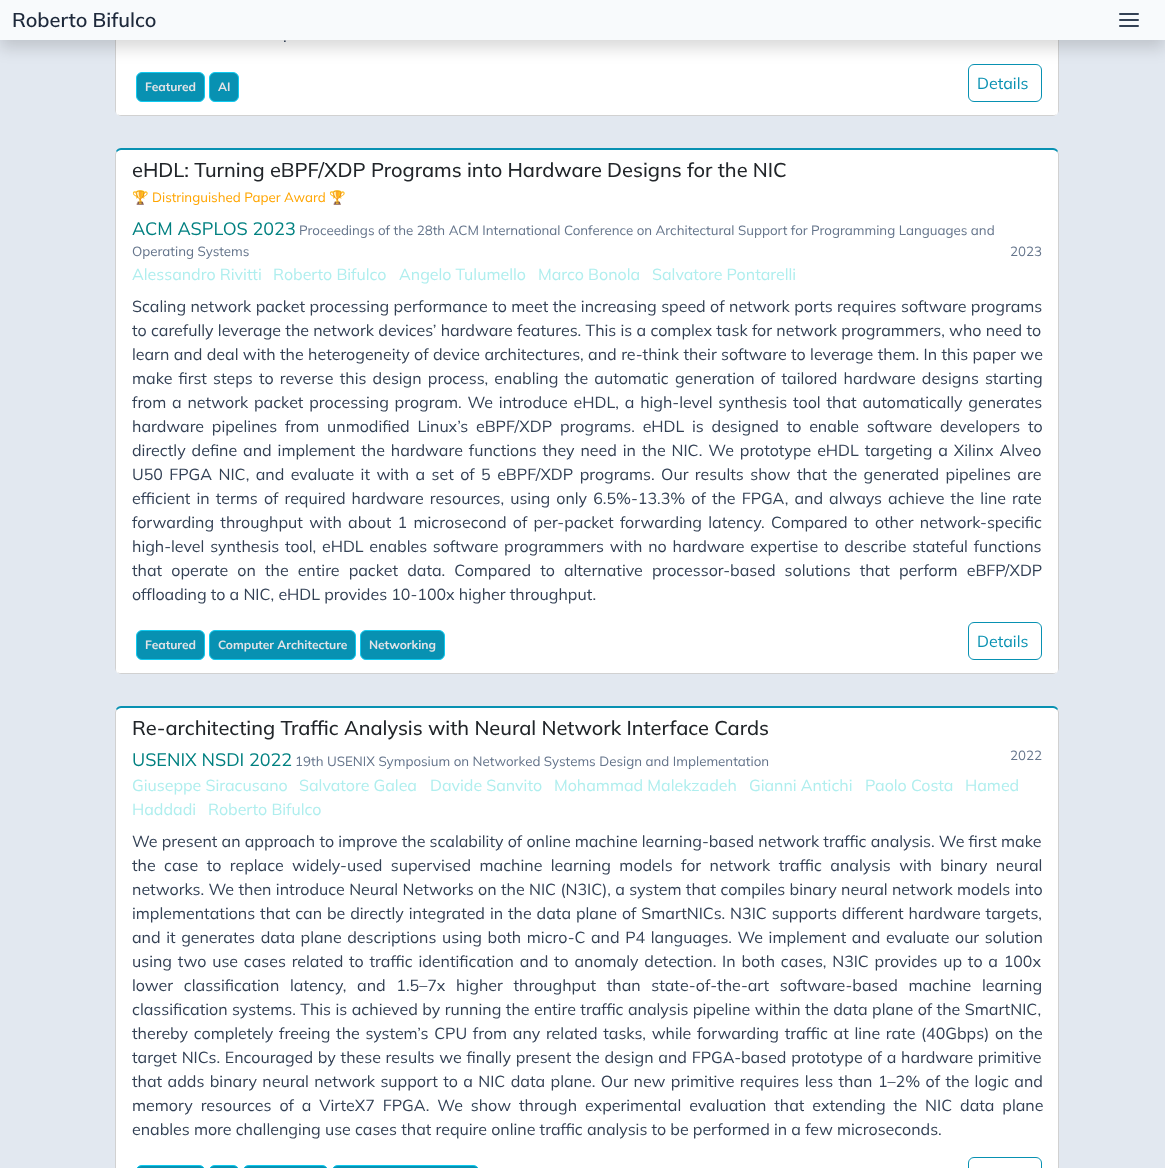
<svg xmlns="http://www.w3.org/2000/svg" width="1165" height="1168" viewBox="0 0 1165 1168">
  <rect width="100%" height="100%" fill="#e2e8f0"/>
  <rect x="115" y="-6" width="944" height="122" rx="6" fill="#fff"/>
  <path d="M1059 110V-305L1058-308L1057-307L1058-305V110C1058 111 1058 113 1057 114C1058 113 1059 112 1059 110Z" fill="#0000002e"/>
  <path d="M115-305V110C115 112 116 113 117 114C116 113 116 111 116 110V-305L117-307L116-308Z" fill="#0000002e"/>
  <path d="M121 116H1053C1054 116 1056 115 1057 114C1056 114 1054 115 1053 115H121C120 115 118 114 117 114C118 115 120 116 121 116Z" fill="#0000002e"/>
  <path d="M116 64H1058V110C1058 113 1056 115 1053 115H121C118 115 116 113 116 110Z" fill="#fff"/>
  <rect x="136.5" y="72.5" width="68" height="29" rx="5.5" fill="#0891b2" stroke="#0dcaf0"/>
  <rect x="209.5" y="72.5" width="29" height="29" rx="5.5" fill="#0891b2" stroke="#0dcaf0"/>
  <rect x="968.5" y="64.5" width="73" height="37" rx="5.5" fill="none" stroke="#0891b2"/>
  <path d="M0 8h1165v40H0z" fill="#00000026" filter="blur(8px)"/>
  <path d="M0 0h1165v40H0z" fill="#f8fafc"/>
  <path d="M1120 20H1138M1120 14H1138M1120 26H1138" fill="none" stroke="#334155" stroke-width="2" stroke-linecap="round" stroke-linejoin="round"/>
  <rect x="115" y="148" width="944" height="526" rx="6" fill="#fff"/>
  <path d="M121 148C119 148 117 149 116 151L117 152C118 151 119 150 121 150H1053C1055 150 1056 151 1057 152L1058 151C1057 149 1055 148 1053 148Z" fill="#0891b2"/>
  <path d="M1059 668V154L1058 151L1057 152L1058 154V668C1058 669 1058 671 1057 672C1058 671 1059 670 1059 668Z" fill="#0000002e"/>
  <path d="M121 674H1053C1054 674 1056 673 1057 672C1056 672 1054 673 1053 673H121C120 673 118 672 117 672C118 673 120 674 121 674Z" fill="#0000002e"/>
  <path d="M115 154V668C115 670 116 671 117 672C116 671 116 669 116 668V154L117 152L116 151Z" fill="#0000002e"/>
  <path d="M116 622H1058V668C1058 671 1056 673 1053 673H121C118 673 116 671 116 668Z" fill="#fff"/>
  <rect x="136.5" y="630.5" width="68" height="29" rx="5.5" fill="#0891b2" stroke="#0dcaf0"/>
  <rect x="209.5" y="630.5" width="146" height="29" rx="5.5" fill="#0891b2" stroke="#0dcaf0"/>
  <rect x="360.5" y="630.5" width="84" height="29" rx="5.5" fill="#0891b2" stroke="#0dcaf0"/>
  <rect x="968.5" y="622.5" width="73" height="37" rx="5.5" fill="none" stroke="#0891b2"/>
  <rect x="115" y="706" width="944" height="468" rx="6" fill="#fff"/>
  <path d="M121 706C119 706 117 707 116 709L117 710C118 709 119 708 121 708H1053C1055 708 1056 709 1057 710L1058 709C1057 707 1055 706 1053 706Z" fill="#0891b2"/>
  <path d="M1059 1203V712L1058 709L1057 710L1058 712V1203C1058 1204 1058 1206 1057 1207C1058 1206 1059 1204 1059 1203Z" fill="#0000002e"/>
  <path d="M115 712V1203C115 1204 116 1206 117 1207C116 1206 116 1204 116 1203V712L117 710L116 709Z" fill="#0000002e"/>
  <rect x="136.5" y="1165.5" width="68" height="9" rx="5.5" fill="#0891b2" stroke="#0dcaf0"/>
  <rect x="209.5" y="1165.5" width="29" height="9" rx="5.5" fill="#0891b2" stroke="#0dcaf0"/>
  <rect x="243.5" y="1165.5" width="84" height="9" rx="5.5" fill="#0891b2" stroke="#0dcaf0"/>
  <rect x="332.5" y="1165.5" width="146" height="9" rx="5.5" fill="#0891b2" stroke="#0dcaf0"/>
  <rect x="968.5" y="1157.5" width="73" height="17" rx="5.5" fill="none" stroke="#0891b2"/>
  <text x="12" y="27" font-family="'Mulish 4'" font-size="20" font-weight="200" fill="#1e293b">Roberto Bifulco</text>
  <text x="283" y="42" font-family="Mulish" font-size="16" font-weight="200" fill="#334155">.</text>
  <g font-family="'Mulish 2'" font-size="12" font-weight="200" fill="#e4e4e7">
    <text x="145" y="91">Featured</text>
    <text x="218" y="91">AI</text>
  </g>
  <text x="977" y="89" font-family="Mulish" font-size="16" font-weight="200" fill="#0891b2">Details</text>
  <text x="132" y="177" font-family="'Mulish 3'" font-size="20" font-weight="200" fill="#212529">eHDL: Turning eBPF/XDP Programs into Hardware Designs for the NIC</text>
  <text x="132" y="202" font-family="Noto Color Emoji" font-size="13.33" fill="#ffa500">🏆</text>
  <text x="152" y="202" font-family="Mulish" font-size="13.33" font-weight="200" fill="#ffa500">Distringuished Paper Award</text>
  <text x="329" y="202" font-family="Noto Color Emoji" font-size="13.33" fill="#ffa500">🏆</text>
  <text x="132" y="235" font-family="Mulish" font-size="18" font-weight="200" fill="#008080">ACM ASPLOS 2023</text>
  <g font-family="Mulish" font-size="13.33" font-weight="200" fill="#64748b">
    <text x="299" y="235">Proceedings of the 28th ACM International Conference on Architectural Support for Programming Languages and</text>
    <text x="132" y="256">Operating Systems</text>
    <text x="1010" y="256">2023</text>
  </g>
  <g font-family="Mulish" font-size="16" font-weight="200" fill="#afeeee">
    <text x="132" y="280">Alessandro Rivitti</text>
    <text x="273" y="280">Roberto Bifulco</text>
    <text x="399" y="280">Angelo Tulumello</text>
    <text x="538" y="280">Marco Bonola</text>
    <text x="652" y="280">Salvatore Pontarelli</text>
  </g>
  <g font-family="Mulish" font-size="16" font-weight="200" fill="#334155">
    <text x="132" y="312" word-spacing="0.25">Scaling network packet processing performance to meet the increasing speed of network ports requires software programs</text>
    <text x="132" y="336" word-spacing="0.1">to carefully leverage the network devices’ hardware features. This is a complex task for network programmers, who need to</text>
    <text x="132" y="360" word-spacing="0.25">learn and deal with the heterogeneity of device architectures, and re-think their software to leverage them. In this paper we</text>
    <text x="132" y="384" word-spacing="2">make first steps to reverse this design process, enabling the automatic generation of tailored hardware designs starting</text>
    <text x="132" y="408" word-spacing="1.6">from a network packet processing program. We introduce eHDL, a high-level synthesis tool that automatically generates</text>
    <text x="132" y="432" word-spacing="3.6">hardware pipelines from unmodified Linux’s eBPF/XDP programs. eHDL is designed to enable software developers to</text>
    <text x="132" y="456" word-spacing="1.75">directly define and implement the hardware functions they need in the NIC. We prototype eHDL targeting a Xilinx Alveo</text>
    <text x="132" y="480" word-spacing="2.25">U50 FPGA NIC, and evaluate it with a set of 5 eBPF/XDP programs. Our results show that the generated pipelines are</text>
    <text x="132" y="504" word-spacing="1.9">efficient in terms of required hardware resources, using only 6.5%-13.3% of the FPGA, and always achieve the line rate</text>
    <text x="132" y="528" word-spacing="2.1">forwarding throughput with about 1 microsecond of per-packet forwarding latency. Compared to other network-specific</text>
    <text x="132" y="552" word-spacing="1.6">high-level synthesis tool, eHDL enables software programmers with no hardware expertise to describe stateful functions</text>
    <text x="132" y="576" word-spacing="4.9">that operate on the entire packet data. Compared to alternative processor-based solutions that perform eBFP/XDP</text>
    <text x="132" y="600">offloading to a NIC, eHDL provides 10-100x higher throughput.</text>
  </g>
  <g font-family="'Mulish 2'" font-size="12" font-weight="200" fill="#e4e4e7">
    <text x="145" y="649">Featured</text>
    <text x="218" y="649">Computer Architecture</text>
    <text x="369" y="649">Networking</text>
  </g>
  <text x="977" y="647" font-family="Mulish" font-size="16" font-weight="200" fill="#0891b2">Details</text>
  <text x="132" y="735" font-family="'Mulish 3'" font-size="20" font-weight="200" fill="#212529">Re-architecting Traffic Analysis with Neural Network Interface Cards</text>
  <text x="132" y="766" font-family="Mulish" font-size="18" font-weight="200" fill="#008080">USENIX NSDI 2022</text>
  <g font-family="Mulish" font-size="13.33" font-weight="200" fill="#64748b">
    <text x="295" y="766">19th USENIX Symposium on Networked Systems Design and Implementation</text>
    <text x="1010" y="760">2022</text>
  </g>
  <g font-family="Mulish" font-size="16" font-weight="200" fill="#afeeee">
    <text x="132" y="791">Giuseppe Siracusano</text>
    <text x="299" y="791">Salvatore Galea</text>
    <text x="430" y="791">Davide Sanvito</text>
    <text x="554" y="791">Mohammad Malekzadeh</text>
    <text x="749" y="791">Gianni Antichi</text>
    <text x="865" y="791">Paolo Costa</text>
    <text x="965" y="791">Hamed</text>
    <text x="132" y="815">Haddadi</text>
    <text x="208" y="815">Roberto Bifulco</text>
  </g>
  <g font-family="Mulish" font-size="16" font-weight="200" fill="#334155">
    <text x="132" y="847">We present an approach to improve the scalability of online machine learning-based network traffic analysis. We first make</text>
    <text x="132" y="871" word-spacing="4.25">the case to replace widely-used supervised machine learning models for network traffic analysis with binary neural</text>
    <text x="132" y="895" word-spacing="0.2">networks. We then introduce Neural Networks on the NIC (N3IC), a system that compiles binary neural network models into</text>
    <text x="132" y="919" word-spacing="0.75">implementations that can be directly integrated in the data plane of SmartNICs. N3IC supports different hardware targets,</text>
    <text x="132" y="943" word-spacing="1.4">and it generates data plane descriptions using both micro-C and P4 languages. We implement and evaluate our solution</text>
    <text x="132" y="967" word-spacing="1.6">using two use cases related to traffic identification and to anomaly detection. In both cases, N3IC provides up to a 100x</text>
    <text x="132" y="991" word-spacing="6.5">lower classification latency, and 1.5–7x higher throughput than state-of-the-art software-based machine learning</text>
    <text x="132" y="1015" word-spacing="0.3">classification systems. This is achieved by running the entire traffic analysis pipeline within the data plane of the SmartNIC,</text>
    <text x="132" y="1039" word-spacing="1.5">thereby completely freeing the system’s CPU from any related tasks, while forwarding traffic at line rate (40Gbps) on the</text>
    <text x="132" y="1063" word-spacing="0.6">target NICs. Encouraged by these results we finally present the design and FPGA-based prototype of a hardware primitive</text>
    <text x="132" y="1087" word-spacing="1.25">that adds binary neural network support to a NIC data plane. Our new primitive requires less than 1–2% of the logic and</text>
    <text x="132" y="1111" word-spacing="3.75">memory resources of a VirteX7 FPGA. We show through experimental evaluation that extending the NIC data plane</text>
    <text x="132" y="1135">enables more challenging use cases that require online traffic analysis to be performed in a few microseconds.</text>
  </g>
</svg>
